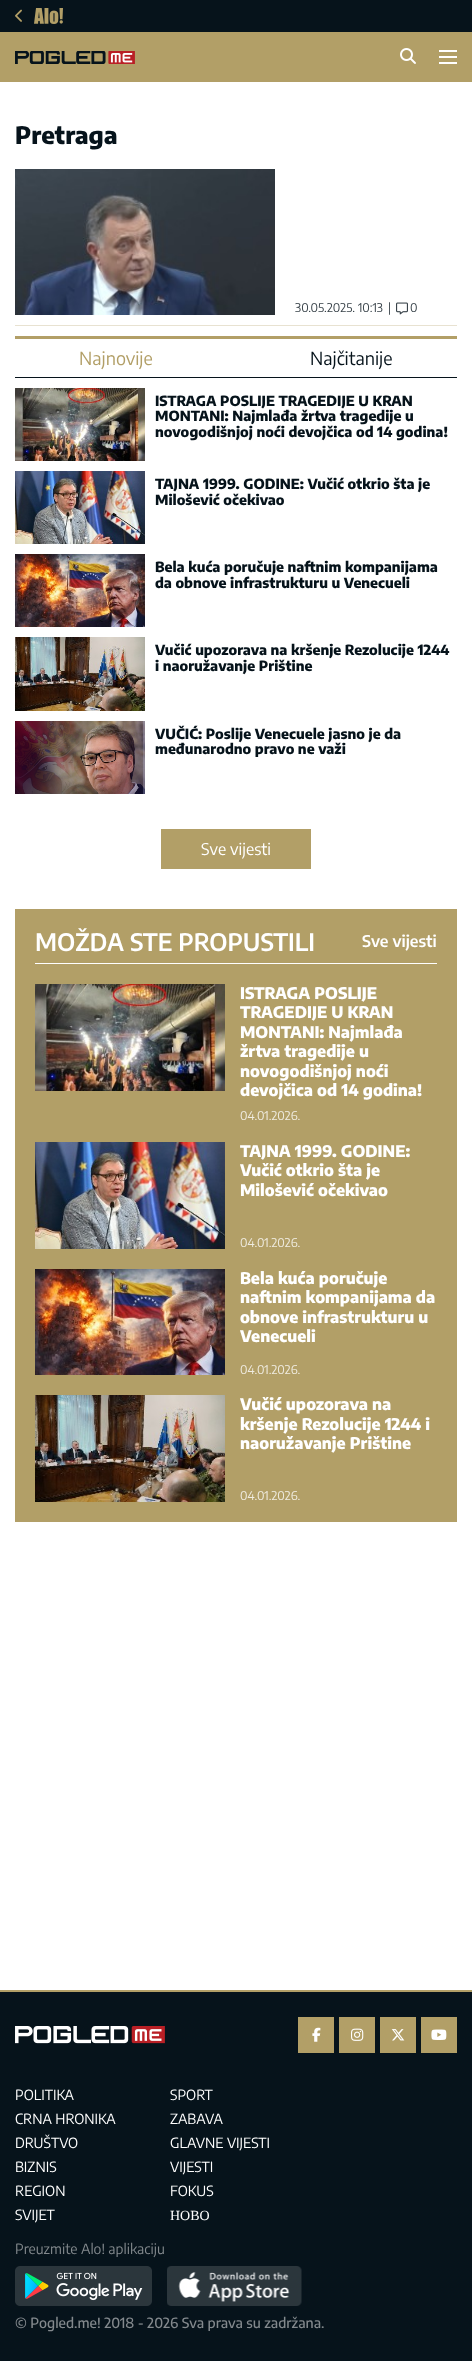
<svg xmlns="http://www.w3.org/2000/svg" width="472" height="2361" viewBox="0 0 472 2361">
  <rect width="100%" height="100%" fill="#fff"/>
  <path d="M0 0h472v32H0z" fill="#06131b"/>
  <image x="15" y="9" width="7" height="13" href="img/1.png"/>
  <image x="34" y="8" width="29" height="16" href="img/2.png"/>
  <path d="M0 32h472v50H0z" fill="#b29f67"/>
  <image x="15" y="51" width="120" height="13" href="img/3.png"/>
  <image x="400" y="48" width="16" height="16" href="img/4.png"/>
  <path d="M439 50h18v2H439z" fill="#fff"/>
  <path d="M439 56h18v2H439z" fill="#fff"/>
  <path d="M439 62h18v2H439z" fill="#fff"/>
  <path d="M15 325h442v1H15z" fill="#e8e2d1"/>
  <image x="15" y="169" width="260" height="146" href="img/5.png"/>
  <image x="396" y="302" width="12" height="13" href="img/6.png"/>
  <path d="M15 336h442v3H15z" fill="#b29f67"/>
  <path d="M15 377h442v1H15z" fill="#06131b"/>
  <image x="15" y="388" width="130" height="73" href="img/7.png"/>
  <image x="15" y="471" width="130" height="73" href="img/8.png"/>
  <image x="15" y="554" width="130" height="73" href="img/9.png"/>
  <image x="15" y="637" width="130" height="74" href="img/10.png"/>
  <image x="15" y="721" width="130" height="73" href="img/11.png"/>
  <path d="M161 829h150v40H161z" fill="#b29f67"/>
  <path d="M15 909h442v613H15z" fill="#b29f67"/>
  <path d="M35 963h402v1H35z" fill="#fff"/>
  <image x="35" y="984" width="190" height="107" href="img/12.png"/>
  <image x="35" y="1142" width="190" height="107" href="img/13.png"/>
  <image x="35" y="1269" width="190" height="106" href="img/14.png"/>
  <image x="35" y="1395" width="190" height="107" href="img/15.png"/>
  <path d="M0 1992h472v369H0z" fill="#06131b"/>
  <path d="M0 1990h472v2H0z" fill="#b29f67"/>
  <image x="15" y="2026" width="150" height="18" href="img/16.png"/>
  <path d="M298 2017h36v36H298z" fill="#b29f67"/>
  <image x="312" y="2027" width="9" height="15" href="img/17.png"/>
  <path d="M339 2017h36v36H339z" fill="#b29f67"/>
  <image x="351" y="2028" width="13" height="13" href="img/18.png"/>
  <path d="M380 2017h36v36H380z" fill="#b29f67"/>
  <image x="391" y="2029" width="14" height="12" href="img/19.png"/>
  <path d="M421 2017h36v36H421z" fill="#b29f67"/>
  <image x="431" y="2029" width="16" height="11" href="img/20.png"/>
  <image x="15" y="2266" width="137" height="40" href="img/21.png"/>
  <image x="167" y="2266" width="135" height="40" href="img/22.png"/>
  <text x="15" y="144" font-family="Encode Sans Condensed" font-size="24" font-weight="800" fill="#06131b">Pretraga</text>
  <g font-family="Encode Sans Condensed" font-size="12" fill="#384249">
    <text x="295" y="312">30.05.2025. 10:13</text>
    <text x="388" y="312">|</text>
    <text x="410" y="312">0</text>
  </g>
  <text x="79" y="365" font-family="Encode Sans Condensed" font-size="18" fill="#b29f67">Najnovije</text>
  <text x="310" y="365" font-family="Encode Sans Condensed" font-size="18" fill="#06131b">Najčitanije</text>
  <g font-family="Encode Sans Condensed" font-size="14" font-weight="800" fill="#06131b">
    <text x="155" y="406">ISTRAGA POSLIJE TRAGEDIJE U KRAN</text>
    <text x="155" y="421">MONTANI: Najmlađa žrtva tragedije u</text>
    <text x="155" y="437">novogodišnjoj noći devojčica od 14 godina!</text>
    <text x="155" y="489">TAJNA 1999. GODINE: Vučić otkrio šta je</text>
    <text x="155" y="505">Milošević očekivao</text>
    <text x="155" y="572">Bela kuća poručuje naftnim kompanijama</text>
    <text x="155" y="588">da obnove infrastrukturu u Venecueli</text>
    <text x="155" y="655">Vučić upozorava na kršenje Rezolucije 1244</text>
    <text x="155" y="671">i naoružavanje Prištine</text>
    <text x="155" y="739">VUČIĆ: Poslije Venecuele jasno je da</text>
    <text x="155" y="754">međunarodno pravo ne važi</text>
  </g>
  <text x="201" y="855" font-family="Encode Sans Condensed" font-size="16" fill="#fff">Sve vijesti</text>
  <text x="35" y="951" font-family="Encode Sans Condensed" font-size="24" font-weight="600" fill="#fff">MOŽDA STE PROPUSTILI</text>
  <text x="362" y="947" font-family="Encode Sans Condensed" font-size="16" font-weight="600" fill="#fff">Sve vijesti</text>
  <g font-family="Encode Sans Condensed" font-size="16" font-weight="800" fill="#fff">
    <text x="240" y="999">ISTRAGA POSLIJE</text>
    <text x="240" y="1018">TRAGEDIJE U KRAN</text>
    <text x="240" y="1038">MONTANI: Najmlađa</text>
    <text x="240" y="1057">žrtva tragedije u</text>
    <text x="240" y="1077">novogodišnjoj noći</text>
    <text x="240" y="1096">devojčica od 14 godina!</text>
  </g>
  <text x="240" y="1120" font-family="Encode Sans Condensed" font-size="12" fill="#f0ece1">04.01.2026.</text>
  <g font-family="Encode Sans Condensed" font-size="16" font-weight="800" fill="#fff">
    <text x="240" y="1157">TAJNA 1999. GODINE:</text>
    <text x="240" y="1176">Vučić otkrio šta je</text>
    <text x="240" y="1196">Milošević očekivao</text>
  </g>
  <text x="240" y="1247" font-family="Encode Sans Condensed" font-size="12" fill="#f0ece1">04.01.2026.</text>
  <g font-family="Encode Sans Condensed" font-size="16" font-weight="800" fill="#fff">
    <text x="240" y="1284">Bela kuća poručuje</text>
    <text x="240" y="1303">naftnim kompanijama da</text>
    <text x="240" y="1323">obnove infrastrukturu u</text>
    <text x="240" y="1342">Venecueli</text>
  </g>
  <text x="240" y="1374" font-family="Encode Sans Condensed" font-size="12" fill="#f0ece1">04.01.2026.</text>
  <g font-family="Encode Sans Condensed" font-size="16" font-weight="800" fill="#fff">
    <text x="240" y="1410">Vučić upozorava na</text>
    <text x="240" y="1430">kršenje Rezolucije 1244 i</text>
    <text x="240" y="1449">naoružavanje Prištine</text>
  </g>
  <text x="240" y="1500" font-family="Encode Sans Condensed" font-size="12" fill="#f0ece1">04.01.2026.</text>
  <g font-family="Encode Sans Condensed" font-size="14" fill="#fff">
    <text x="15" y="2100">POLITIKA</text>
    <text x="170" y="2100">SPORT</text>
    <text x="15" y="2124">CRNA HRONIKA</text>
    <text x="170" y="2124">ZABAVA</text>
    <text x="15" y="2148">DRUŠTVO</text>
    <text x="170" y="2148">GLAVNE VIJESTI</text>
    <text x="15" y="2172">BIZNIS</text>
    <text x="170" y="2172">VIJESTI</text>
    <text x="15" y="2196">REGION</text>
    <text x="170" y="2196">FOKUS</text>
    <text x="15" y="2220">SVIJET</text>
  </g>
  <text x="170" y="2220" font-family="Liberation Serif" font-size="14" fill="#fff">НОВО</text>
  <text x="15" y="2254" font-family="Encode Sans Condensed" font-size="14" fill="#83898d">Preuzmite Alo! aplikaciju</text>
  <text x="15" y="2328" font-family="Encode Sans Condensed" font-size="14" font-weight="500" fill="#83898d">© Pogled.me! 2018 - 2026 Sva prava su zadržana.</text>
</svg>
